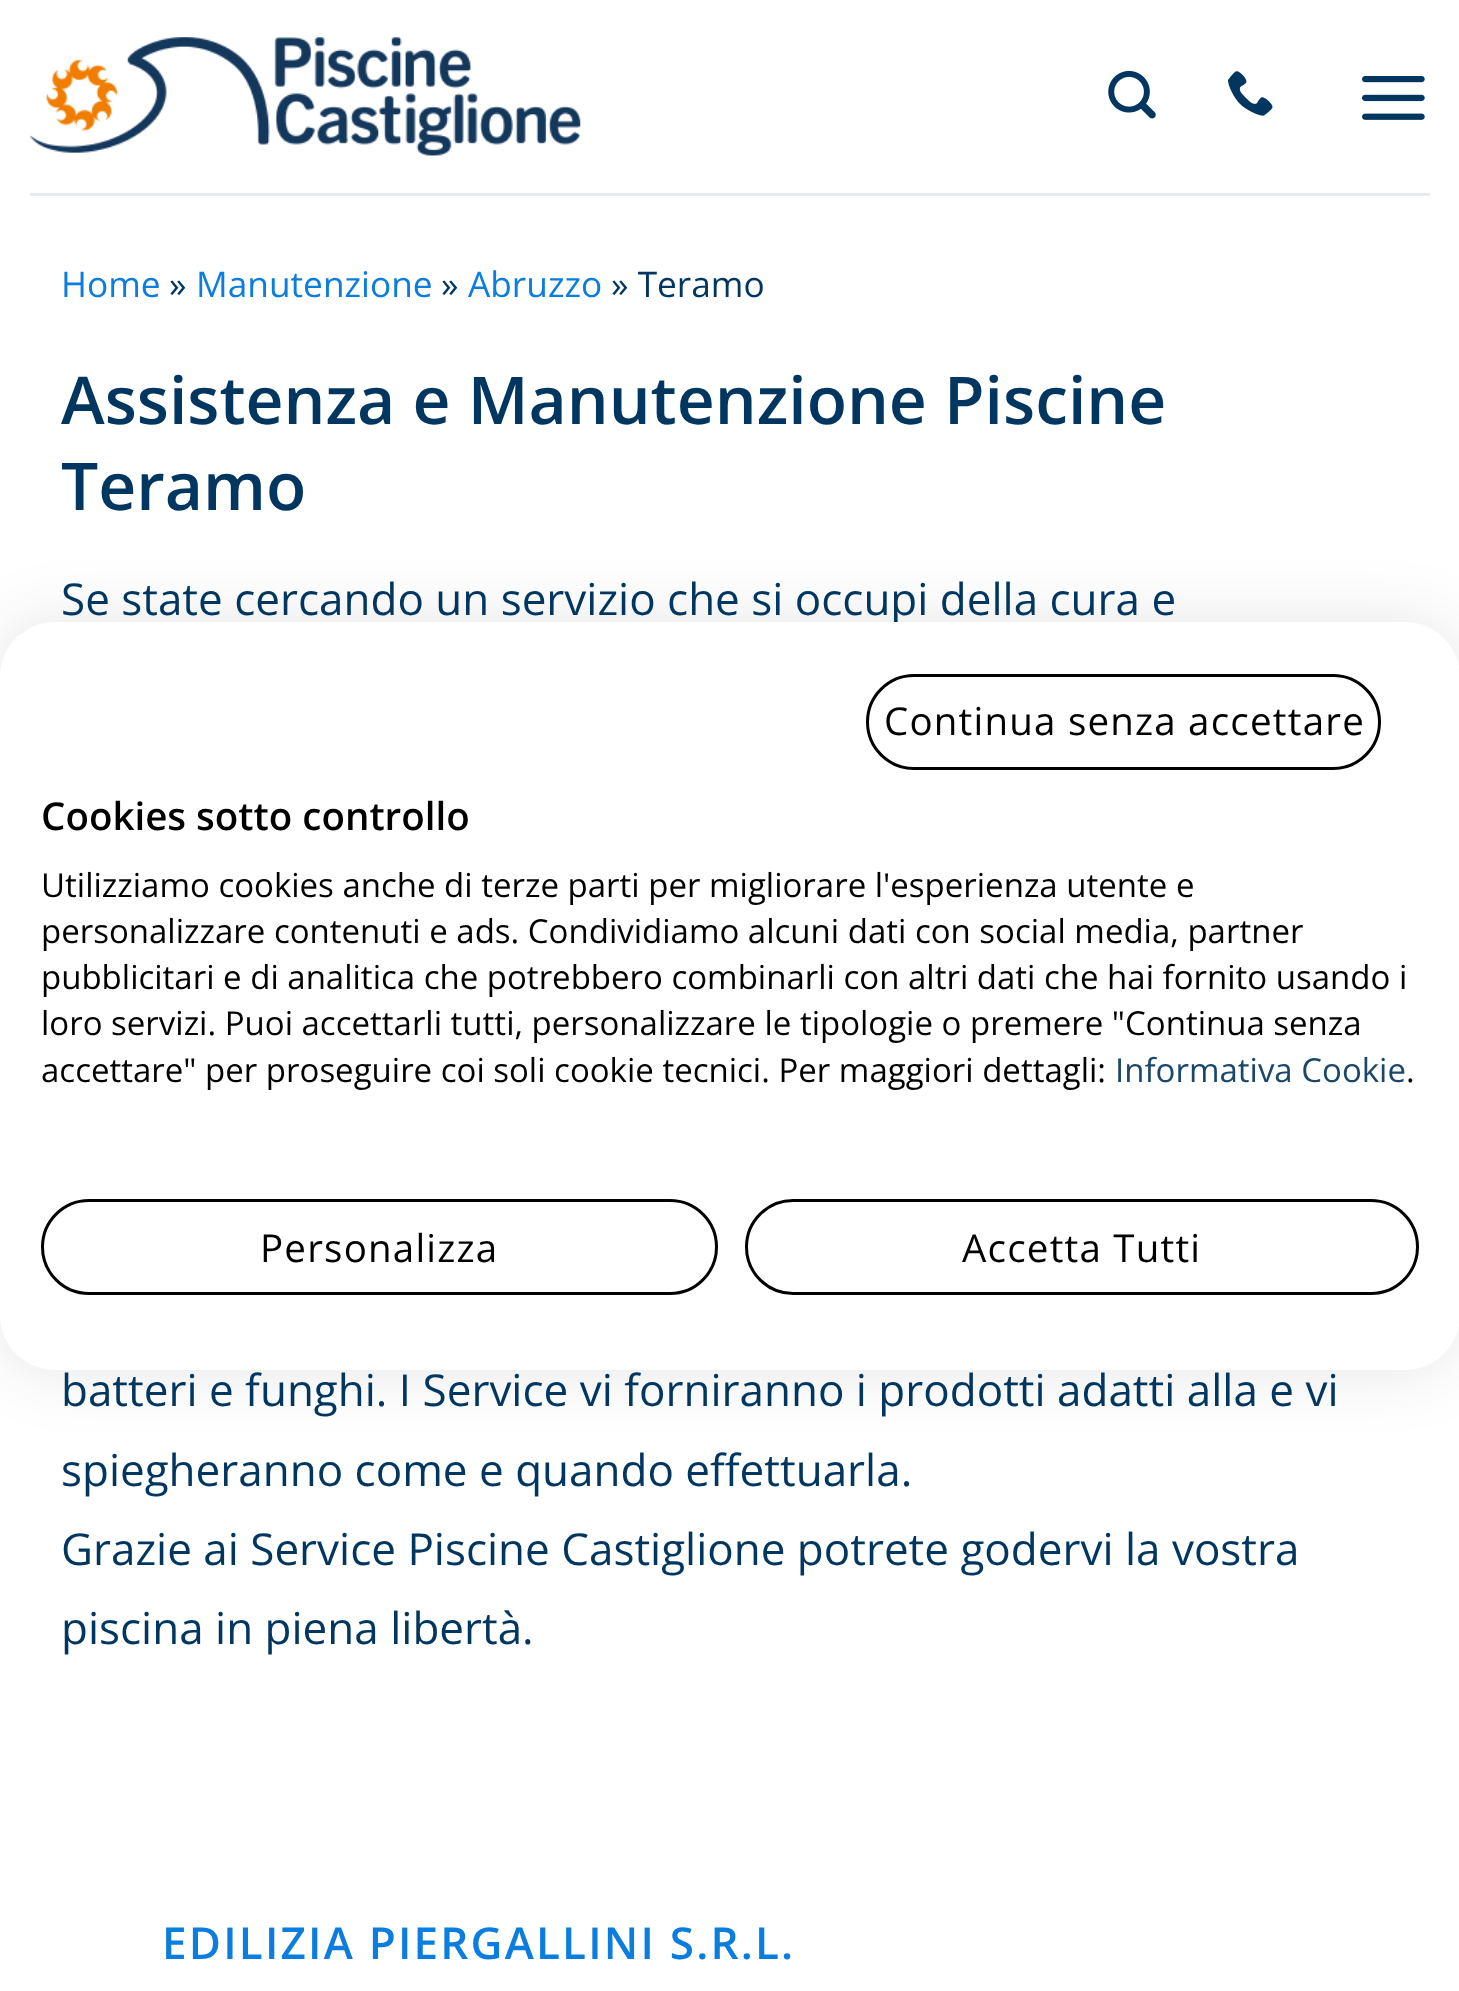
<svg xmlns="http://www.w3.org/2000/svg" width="1459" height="1991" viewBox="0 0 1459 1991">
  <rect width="100%" height="100%" fill="#fff"/>
  <image x="30" y="37" width="551" height="119" href="img/1.png"/>
  <image x="1108" y="70" width="48" height="49" href="img/2.png"/>
  <image x="1228" y="71" width="45" height="45" href="img/3.png"/>
  <image x="1362" y="76" width="63" height="44" href="img/4.png"/>
  <path d="M30 193h1400v3H30z" fill="#e6ebef"/>
  <rect y="622" width="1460" height="748" rx="55" fill="#0000001a" filter="blur(33px)"/>
  <text x="61" y="297" font-family="Open Sans" font-size="35.25" fill="#0a7ddf">Home</text>
  <text x="169" y="297" font-family="Open Sans" font-size="35.25" fill="#00365f">»</text>
  <text x="196" y="297" font-family="Open Sans" font-size="35.25" fill="#0a7ddf">Manutenzione</text>
  <text x="441" y="297" font-family="Open Sans" font-size="35.25" fill="#00365f">»</text>
  <text x="468" y="297" font-family="Open Sans" font-size="35.25" fill="#0a7ddf">Abruzzo</text>
  <text x="611" y="297" font-family="Open Sans" font-size="35.25" fill="#00365f">» Teramo</text>
  <g font-family="Open Sans" font-size="66" font-weight="600" fill="#00365f">
    <text x="61" y="424">Assistenza e Manutenzione Piscine</text>
    <text x="61" y="510">Teramo</text>
  </g>
  <g font-family="Open Sans" font-size="44" fill="#00365f">
    <text x="61" y="615">Se state cercando un servizio che si occupi della cura e</text>
    <text x="61" y="1406">batteri e funghi. I Service vi forniranno i prodotti adatti alla e vi</text>
    <text x="61" y="1486">spiegheranno come e quando effettuarla.</text>
    <text x="61" y="1565">Grazie ai Service Piscine Castiglione potrete godervi la vostra</text>
    <text x="61" y="1644">piscina in piena libertà.</text>
  </g>
  <text x="162" y="1959" font-family="Open Sans" font-size="44" font-weight="600" letter-spacing="2.2" fill="#0a7ddf">EDILIZIA PIERGALLINI S.R.L.</text>
  <rect y="622" width="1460" height="748" rx="55" fill="#fff"/>
  <rect x="867.5" y="675.5" width="512" height="93" rx="46.5" fill="none" stroke="#000" stroke-width="3"/>
  <text x="884" y="735" font-family="Open Sans" font-size="38.5" letter-spacing="1.2" fill="#000">Continua senza accettare</text>
  <text x="41" y="830" font-family="Open Sans" font-size="38.5" font-weight="600" fill="#000">Cookies sotto controllo</text>
  <g font-family="Open Sans" font-size="33" fill="#000">
    <text x="41" y="897">Utilizziamo cookies anche di terze parti per migliorare l'esperienza utente e</text>
    <text x="41" y="943">personalizzare contenuti e ads. Condividiamo alcuni dati con social media, partner</text>
    <text x="41" y="989">pubblicitari e di analitica che potrebbero combinarli con altri dati che hai fornito usando i</text>
    <text x="41" y="1035">loro servizi. Puoi accettarli tutti, personalizzare le tipologie o premere "Continua senza</text>
    <text x="41" y="1082">accettare" per proseguire coi soli cookie tecnici. Per maggiori dettagli:</text>
  </g>
  <text x="1115" y="1082" font-family="Open Sans" font-size="33" fill="#1b4768">Informativa Cookie</text>
  <text x="1406" y="1082" font-family="Open Sans" font-size="33" fill="#000">.</text>
  <rect x="42.5" y="1200.5" width="674" height="93" rx="46.5" fill="none" stroke="#000" stroke-width="3"/>
  <text x="260" y="1262" font-family="Open Sans" font-size="38.5" letter-spacing="1.2" fill="#000">Personalizza</text>
  <rect x="746.5" y="1200.5" width="671" height="93" rx="46.5" fill="none" stroke="#000" stroke-width="3"/>
  <text x="962" y="1262" font-family="Open Sans" font-size="38.5" letter-spacing="1.2" fill="#000">Accetta Tutti</text>
</svg>
